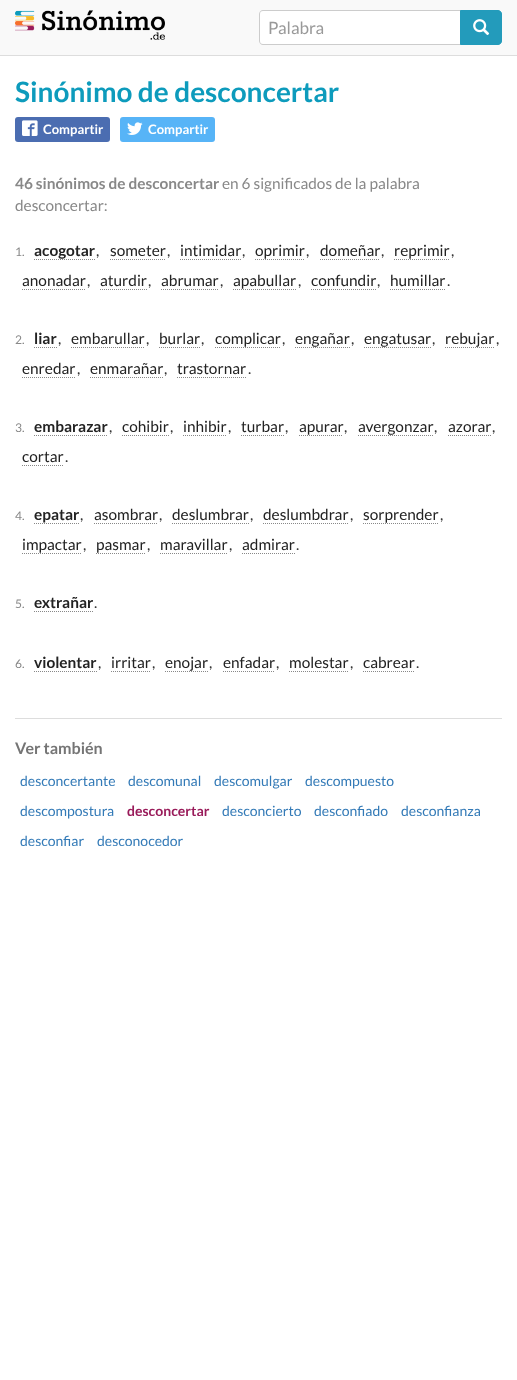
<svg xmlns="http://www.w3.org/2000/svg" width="517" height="1380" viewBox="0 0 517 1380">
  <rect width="100%" height="100%" fill="#fff"/>
  <path d="M0 0h517v55H0z" fill="#f9f9f9"/>
  <path d="M0 55h517v1H0z" fill="#ddd"/>
  <image x="15" y="10" width="150" height="30" href="img/1.png"/>
  <path d="M263 10H461V45H263C261 45 259 43 259 41V14C259 12 261 10 263 10Z" fill="#fff"/>
  <path d="M263 10H461V45H263C261 45 259 43 259 41V14C259 12 261 10 263 10ZM263 11H461V44H263C261 44 260 43 260 41V14C260 12 261 11 263 11Z" fill="#ccc" fill-rule="evenodd"/>
  <path d="M460.5 10.5H498C500 10.5 501.5 12 501.5 14V41C501.5 43 500 44.5 498 44.5H460.5Z" fill="#239bbb" stroke="#239bbb"/>
  <image x="473" y="19" width="17" height="17" href="img/2.png"/>
  <rect x="15" y="117" width="95" height="25" rx="3" fill="#4b6db1"/>
  <image x="22" y="120" width="16" height="16" href="img/3.png"/>
  <rect x="120" y="117" width="95" height="25" rx="3" fill="#57b4f7"/>
  <image x="127" y="122" width="16" height="13" href="img/4.png"/>
  <path d="M34 259.5H95" fill="none" stroke="#888" stroke-dasharray="1 1"/>
  <path d="M110 259.5H166" fill="none" stroke="#888" stroke-dasharray="1 1"/>
  <path d="M180 259.5H241" fill="none" stroke="#888" stroke-dasharray="1 1"/>
  <path d="M255 259.5H305" fill="none" stroke="#888" stroke-dasharray="1 1"/>
  <path d="M320 259.5H380" fill="none" stroke="#888" stroke-dasharray="1 1"/>
  <path d="M394 259.5H450" fill="none" stroke="#888" stroke-dasharray="1 1"/>
  <path d="M22 289.5H86" fill="none" stroke="#888" stroke-dasharray="1 1"/>
  <path d="M100 289.5H147" fill="none" stroke="#888" stroke-dasharray="1 1"/>
  <path d="M161 289.5H219" fill="none" stroke="#888" stroke-dasharray="1 1"/>
  <path d="M233 289.5H297" fill="none" stroke="#888" stroke-dasharray="1 1"/>
  <path d="M311 289.5H376" fill="none" stroke="#888" stroke-dasharray="1 1"/>
  <path d="M390 289.5H446" fill="none" stroke="#888" stroke-dasharray="1 1"/>
  <path d="M34 347.5H57" fill="none" stroke="#888" stroke-dasharray="1 1"/>
  <path d="M71 347.5H145" fill="none" stroke="#888" stroke-dasharray="1 1"/>
  <path d="M159 347.5H200" fill="none" stroke="#888" stroke-dasharray="1 1"/>
  <path d="M215 347.5H281" fill="none" stroke="#888" stroke-dasharray="1 1"/>
  <path d="M295 347.5H350" fill="none" stroke="#888" stroke-dasharray="1 1"/>
  <path d="M364 347.5H431" fill="none" stroke="#888" stroke-dasharray="1 1"/>
  <path d="M445 347.5H495" fill="none" stroke="#888" stroke-dasharray="1 1"/>
  <path d="M22 377.5H76" fill="none" stroke="#888" stroke-dasharray="1 1"/>
  <path d="M90 377.5H163" fill="none" stroke="#888" stroke-dasharray="1 1"/>
  <path d="M177 377.5H247" fill="none" stroke="#888" stroke-dasharray="1 1"/>
  <path d="M34 435.5H108" fill="none" stroke="#888" stroke-dasharray="1 1"/>
  <path d="M122 435.5H169" fill="none" stroke="#888" stroke-dasharray="1 1"/>
  <path d="M183 435.5H227" fill="none" stroke="#888" stroke-dasharray="1 1"/>
  <path d="M241 435.5H284" fill="none" stroke="#888" stroke-dasharray="1 1"/>
  <path d="M299 435.5H343" fill="none" stroke="#888" stroke-dasharray="1 1"/>
  <path d="M358 435.5H433" fill="none" stroke="#888" stroke-dasharray="1 1"/>
  <path d="M448 435.5H491" fill="none" stroke="#888" stroke-dasharray="1 1"/>
  <path d="M22 465.5H64" fill="none" stroke="#888" stroke-dasharray="1 1"/>
  <path d="M34 523.5H79" fill="none" stroke="#888" stroke-dasharray="1 1"/>
  <path d="M94 523.5H158" fill="none" stroke="#888" stroke-dasharray="1 1"/>
  <path d="M172 523.5H249" fill="none" stroke="#888" stroke-dasharray="1 1"/>
  <path d="M263 523.5H349" fill="none" stroke="#888" stroke-dasharray="1 1"/>
  <path d="M363 523.5H439" fill="none" stroke="#888" stroke-dasharray="1 1"/>
  <path d="M22 553.5H82" fill="none" stroke="#888" stroke-dasharray="1 1"/>
  <path d="M96 553.5H146" fill="none" stroke="#888" stroke-dasharray="1 1"/>
  <path d="M160 553.5H228" fill="none" stroke="#888" stroke-dasharray="1 1"/>
  <path d="M242 553.5H295" fill="none" stroke="#888" stroke-dasharray="1 1"/>
  <path d="M34 611.5H93" fill="none" stroke="#888" stroke-dasharray="1 1"/>
  <path d="M34 671.5H97" fill="none" stroke="#888" stroke-dasharray="1 1"/>
  <path d="M111 671.5H151" fill="none" stroke="#888" stroke-dasharray="1 1"/>
  <path d="M165 671.5H208" fill="none" stroke="#888" stroke-dasharray="1 1"/>
  <path d="M223 671.5H275" fill="none" stroke="#888" stroke-dasharray="1 1"/>
  <path d="M289 671.5H349" fill="none" stroke="#888" stroke-dasharray="1 1"/>
  <path d="M363 671.5H415" fill="none" stroke="#888" stroke-dasharray="1 1"/>
  <path d="M15 718h487v1H15z" fill="#ddd"/>
  <text x="268" y="34" font-family="Lato" font-size="17" fill="#999">Palabra</text>
  <text x="15" y="102" font-family="Lato" font-size="28" font-weight="bold" fill="#0d9bbc">Sinónimo de desconcertar</text>
  <g font-family="Lato" font-size="13" font-weight="bold" fill="#fff">
    <text x="43" y="134">Compartir</text>
    <text x="148" y="134">Compartir</text>
  </g>
  <text x="15" y="189" font-family="Lato" font-size="15.4" font-weight="bold" fill="#888">46 sinónimos de desconcertar</text>
  <g font-family="Lato" font-size="15.4" fill="#888">
    <text x="222" y="189">en 6 significados de la palabra</text>
    <text x="15" y="211">desconcertar:</text>
  </g>
  <text x="15" y="256" font-family="Lato" font-size="12" fill="#888">1.</text>
  <text x="34" y="256" font-family="Lato" font-size="15.4" font-weight="bold" fill="#222">acogotar</text>
  <text x="96" y="256" font-family="Lato" font-size="15.4" fill="#333">,</text>
  <text x="110" y="256" font-family="Lato" font-size="15.4" fill="#222">someter</text>
  <text x="167" y="256" font-family="Lato" font-size="15.4" fill="#333">,</text>
  <text x="180" y="256" font-family="Lato" font-size="15.4" fill="#222">intimidar</text>
  <text x="242" y="256" font-family="Lato" font-size="15.4" fill="#333">,</text>
  <text x="255" y="256" font-family="Lato" font-size="15.4" fill="#222">oprimir</text>
  <text x="306" y="256" font-family="Lato" font-size="15.4" fill="#333">,</text>
  <text x="320" y="256" font-family="Lato" font-size="15.4" fill="#222">domeñar</text>
  <text x="381" y="256" font-family="Lato" font-size="15.4" fill="#333">,</text>
  <text x="394" y="256" font-family="Lato" font-size="15.4" fill="#222">reprimir</text>
  <text x="451" y="256" font-family="Lato" font-size="15.4" fill="#333">,</text>
  <text x="22" y="286" font-family="Lato" font-size="15.4" fill="#222">anonadar</text>
  <text x="87" y="286" font-family="Lato" font-size="15.4" fill="#333">,</text>
  <text x="100" y="286" font-family="Lato" font-size="15.4" fill="#222">aturdir</text>
  <text x="148" y="286" font-family="Lato" font-size="15.4" fill="#333">,</text>
  <text x="161" y="286" font-family="Lato" font-size="15.4" fill="#222">abrumar</text>
  <text x="220" y="286" font-family="Lato" font-size="15.4" fill="#333">,</text>
  <text x="233" y="286" font-family="Lato" font-size="15.4" fill="#222">apabullar</text>
  <text x="298" y="286" font-family="Lato" font-size="15.4" fill="#333">,</text>
  <text x="311" y="286" font-family="Lato" font-size="15.4" fill="#222">confundir</text>
  <text x="377" y="286" font-family="Lato" font-size="15.4" fill="#333">,</text>
  <text x="390" y="286" font-family="Lato" font-size="15.4" fill="#222">humillar</text>
  <text x="447" y="286" font-family="Lato" font-size="15.4" fill="#333">.</text>
  <text x="15" y="344" font-family="Lato" font-size="12" fill="#888">2.</text>
  <text x="34" y="344" font-family="Lato" font-size="15.4" font-weight="bold" fill="#222">liar</text>
  <text x="58" y="344" font-family="Lato" font-size="15.4" fill="#333">,</text>
  <text x="71" y="344" font-family="Lato" font-size="15.4" fill="#222">embarullar</text>
  <text x="146" y="344" font-family="Lato" font-size="15.4" fill="#333">,</text>
  <text x="159" y="344" font-family="Lato" font-size="15.4" fill="#222">burlar</text>
  <text x="201" y="344" font-family="Lato" font-size="15.4" fill="#333">,</text>
  <text x="215" y="344" font-family="Lato" font-size="15.4" fill="#222">complicar</text>
  <text x="282" y="344" font-family="Lato" font-size="15.4" fill="#333">,</text>
  <text x="295" y="344" font-family="Lato" font-size="15.4" fill="#222">engañar</text>
  <text x="351" y="344" font-family="Lato" font-size="15.4" fill="#333">,</text>
  <text x="364" y="344" font-family="Lato" font-size="15.4" fill="#222">engatusar</text>
  <text x="432" y="344" font-family="Lato" font-size="15.4" fill="#333">,</text>
  <text x="445" y="344" font-family="Lato" font-size="15.4" fill="#222">rebujar</text>
  <text x="496" y="344" font-family="Lato" font-size="15.4" fill="#333">,</text>
  <text x="22" y="374" font-family="Lato" font-size="15.4" fill="#222">enredar</text>
  <text x="77" y="374" font-family="Lato" font-size="15.4" fill="#333">,</text>
  <text x="90" y="374" font-family="Lato" font-size="15.4" fill="#222">enmarañar</text>
  <text x="164" y="374" font-family="Lato" font-size="15.4" fill="#333">,</text>
  <text x="177" y="374" font-family="Lato" font-size="15.4" fill="#222">trastornar</text>
  <text x="248" y="374" font-family="Lato" font-size="15.4" fill="#333">.</text>
  <text x="15" y="432" font-family="Lato" font-size="12" fill="#888">3.</text>
  <text x="34" y="432" font-family="Lato" font-size="15.4" font-weight="bold" fill="#222">embarazar</text>
  <text x="109" y="432" font-family="Lato" font-size="15.4" fill="#333">,</text>
  <text x="122" y="432" font-family="Lato" font-size="15.4" fill="#222">cohibir</text>
  <text x="170" y="432" font-family="Lato" font-size="15.4" fill="#333">,</text>
  <text x="183" y="432" font-family="Lato" font-size="15.4" fill="#222">inhibir</text>
  <text x="228" y="432" font-family="Lato" font-size="15.4" fill="#333">,</text>
  <text x="241" y="432" font-family="Lato" font-size="15.4" fill="#222">turbar</text>
  <text x="285" y="432" font-family="Lato" font-size="15.4" fill="#333">,</text>
  <text x="299" y="432" font-family="Lato" font-size="15.4" fill="#222">apurar</text>
  <text x="344" y="432" font-family="Lato" font-size="15.4" fill="#333">,</text>
  <text x="358" y="432" font-family="Lato" font-size="15.4" fill="#222">avergonzar</text>
  <text x="434" y="432" font-family="Lato" font-size="15.4" fill="#333">,</text>
  <text x="448" y="432" font-family="Lato" font-size="15.4" fill="#222">azorar</text>
  <text x="492" y="432" font-family="Lato" font-size="15.4" fill="#333">,</text>
  <text x="22" y="462" font-family="Lato" font-size="15.4" fill="#222">cortar</text>
  <text x="65" y="462" font-family="Lato" font-size="15.4" fill="#333">.</text>
  <text x="15" y="520" font-family="Lato" font-size="12" fill="#888">4.</text>
  <text x="34" y="520" font-family="Lato" font-size="15.4" font-weight="bold" fill="#222">epatar</text>
  <text x="80" y="520" font-family="Lato" font-size="15.4" fill="#333">,</text>
  <text x="94" y="520" font-family="Lato" font-size="15.4" fill="#222">asombrar</text>
  <text x="159" y="520" font-family="Lato" font-size="15.4" fill="#333">,</text>
  <text x="172" y="520" font-family="Lato" font-size="15.4" fill="#222">deslumbrar</text>
  <text x="250" y="520" font-family="Lato" font-size="15.4" fill="#333">,</text>
  <text x="263" y="520" font-family="Lato" font-size="15.4" fill="#222">deslumbdrar</text>
  <text x="350" y="520" font-family="Lato" font-size="15.4" fill="#333">,</text>
  <text x="363" y="520" font-family="Lato" font-size="15.4" fill="#222">sorprender</text>
  <text x="440" y="520" font-family="Lato" font-size="15.4" fill="#333">,</text>
  <text x="22" y="550" font-family="Lato" font-size="15.4" fill="#222">impactar</text>
  <text x="83" y="550" font-family="Lato" font-size="15.4" fill="#333">,</text>
  <text x="96" y="550" font-family="Lato" font-size="15.4" fill="#222">pasmar</text>
  <text x="147" y="550" font-family="Lato" font-size="15.4" fill="#333">,</text>
  <text x="160" y="550" font-family="Lato" font-size="15.4" fill="#222">maravillar</text>
  <text x="229" y="550" font-family="Lato" font-size="15.4" fill="#333">,</text>
  <text x="242" y="550" font-family="Lato" font-size="15.4" fill="#222">admirar</text>
  <text x="296" y="550" font-family="Lato" font-size="15.4" fill="#333">.</text>
  <text x="15" y="608" font-family="Lato" font-size="12" fill="#888">5.</text>
  <text x="34" y="608" font-family="Lato" font-size="15.4" font-weight="bold" fill="#222">extrañar</text>
  <text x="94" y="608" font-family="Lato" font-size="15.4" fill="#333">.</text>
  <text x="15" y="668" font-family="Lato" font-size="12" fill="#888">6.</text>
  <text x="34" y="668" font-family="Lato" font-size="15.4" font-weight="bold" fill="#222">violentar</text>
  <text x="98" y="668" font-family="Lato" font-size="15.4" fill="#333">,</text>
  <text x="111" y="668" font-family="Lato" font-size="15.4" fill="#222">irritar</text>
  <text x="152" y="668" font-family="Lato" font-size="15.4" fill="#333">,</text>
  <text x="165" y="668" font-family="Lato" font-size="15.4" fill="#222">enojar</text>
  <text x="209" y="668" font-family="Lato" font-size="15.4" fill="#333">,</text>
  <text x="223" y="668" font-family="Lato" font-size="15.4" fill="#222">enfadar</text>
  <text x="276" y="668" font-family="Lato" font-size="15.4" fill="#333">,</text>
  <text x="289" y="668" font-family="Lato" font-size="15.4" fill="#222">molestar</text>
  <text x="350" y="668" font-family="Lato" font-size="15.4" fill="#333">,</text>
  <text x="363" y="668" font-family="Lato" font-size="15.4" fill="#222">cabrear</text>
  <text x="416" y="668" font-family="Lato" font-size="15.4" fill="#333">.</text>
  <text x="15" y="754" font-family="Lato" font-size="16" font-weight="bold" fill="#757575">Ver también</text>
  <g font-family="Lato" font-size="14" fill="#337ab7">
    <text x="20" y="786">desconcertante</text>
    <text x="128" y="786">descomunal</text>
    <text x="214" y="786">descomulgar</text>
    <text x="305" y="786">descompuesto</text>
    <text x="20" y="816">descompostura</text>
  </g>
  <text x="127" y="816" font-family="Lato" font-size="14" font-weight="bold" fill="#991b5a">desconcertar</text>
  <g font-family="Lato" font-size="14" fill="#337ab7">
    <text x="222" y="816">desconcierto</text>
    <text x="314" y="816">desconfiado</text>
    <text x="401" y="816">desconfianza</text>
    <text x="20" y="846">desconfiar</text>
    <text x="97" y="846">desconocedor</text>
  </g>
</svg>
